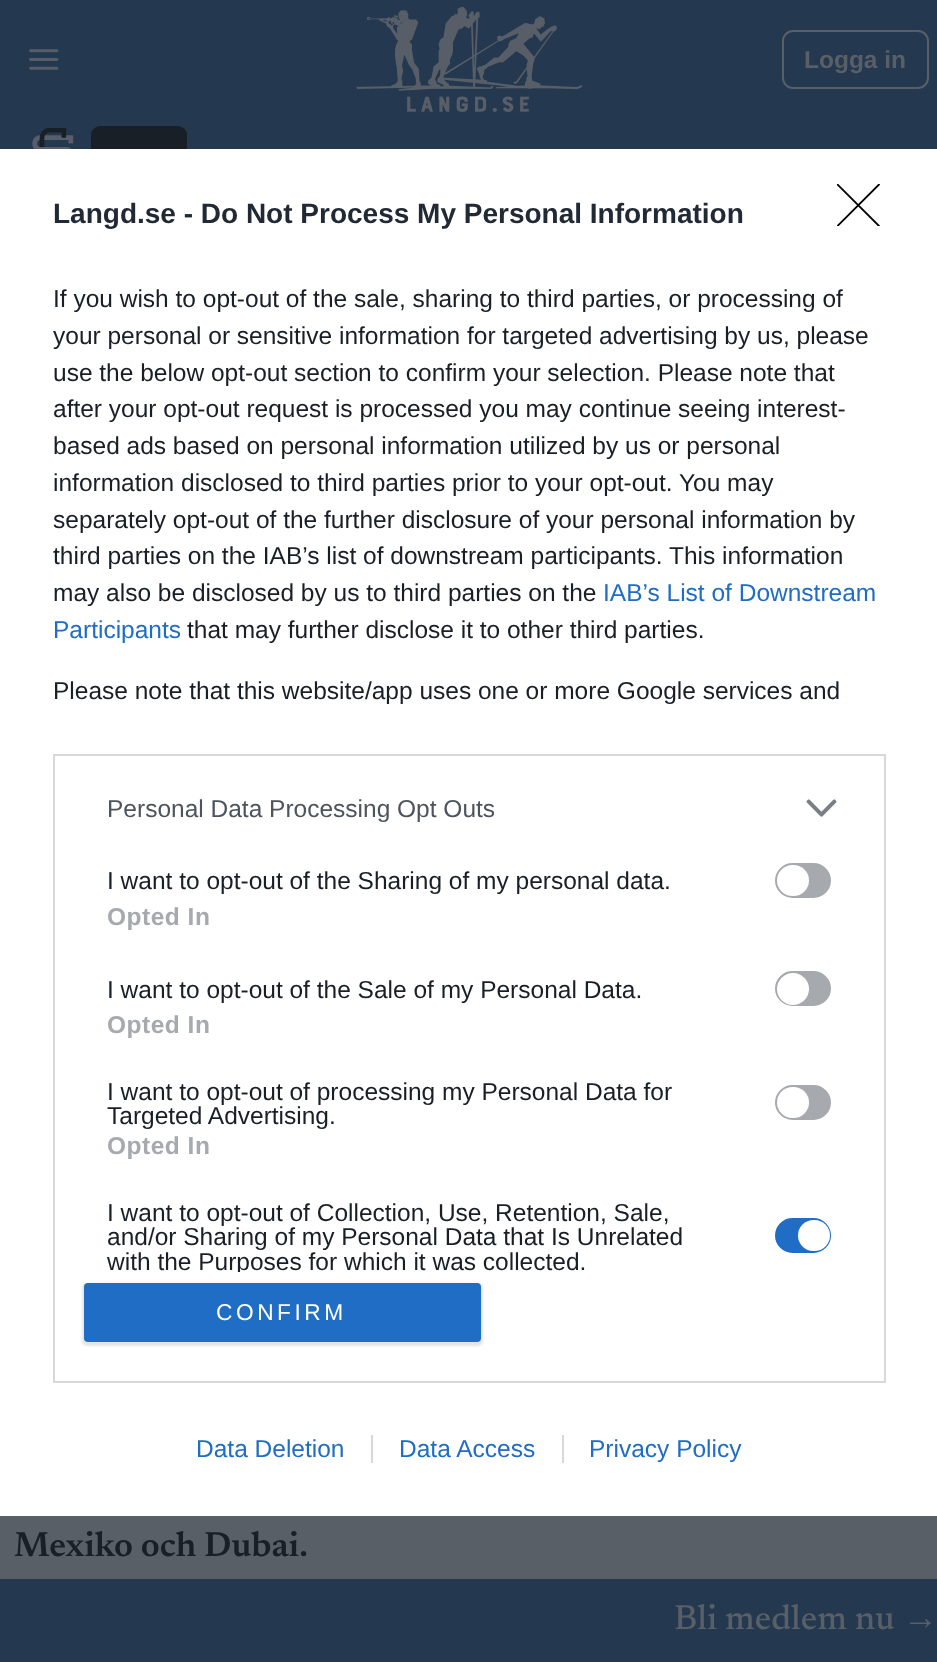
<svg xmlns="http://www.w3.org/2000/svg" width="937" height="1662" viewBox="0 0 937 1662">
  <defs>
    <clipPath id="clip1"><path d="M837 184h43v42H837z"/></clipPath>
    <clipPath id="clip2"><path d="M72 774h794v498H72z"/></clipPath>
  </defs>
  <rect width="100%" height="100%" fill="#595f67"/>
  <path d="M0 0h937v149H0z" fill="#243950"/>
  <image x="32" y="128" width="42" height="21" href="img/1.png"/>
  <rect x="91" y="126" width="96" height="46" rx="9" fill="#191f27"/>
  <image x="29" y="49" width="30" height="21" href="img/2.png"/>
  <image x="356" y="6" width="227" height="106" href="img/3.png"/>
  <rect x="783" y="31" width="145" height="57" rx="10" fill="none" stroke="#595f67" stroke-width="2"/>
  <path d="M0 149h937v1367H0z" fill="#fff"/>
  <g clip-path="url(#clip1)">
    <path d="M837.5 184.5L879 226M879 184.5L837.5 226" fill="none" stroke="#000" stroke-width="1.8" stroke-linecap="round" stroke-linejoin="round"/>
  </g>
  <path d="M54 755h831v627H54z" fill="none" stroke="#d8d8d8" stroke-width="2"/>
  <image x="806" y="799" width="31" height="18" href="img/4.png"/>
  <rect x="776" y="864" width="54" height="33" rx="16.5" fill="#a6a9ae" stroke="#a6a9ae" stroke-width="2"/>
  <rect x="777" y="865" width="32" height="31" rx="15.5" fill="#fff"/>
  <rect x="776" y="972" width="54" height="33" rx="16.5" fill="#a6a9ae" stroke="#a6a9ae" stroke-width="2"/>
  <circle cx="793" cy="989" r="16" fill="#fff"/>
  <rect x="776" y="1086" width="54" height="33" rx="16.5" fill="#a6a9ae" stroke="#a6a9ae" stroke-width="2"/>
  <rect x="777" y="1087" width="32" height="31" rx="15.5" fill="#fff"/>
  <rect x="776" y="1219" width="54" height="33" rx="16.5" fill="#206dc5" stroke="#206dc5" stroke-width="2"/>
  <rect x="798" y="1220" width="32" height="31" rx="15.5" fill="#fff"/>
  <rect x="82" y="1283" width="401" height="63" rx="5" fill="#0000001a" filter="blur(1px)"/>
  <rect x="84" y="1283" width="397" height="59" rx="4" fill="#206dc5"/>
  <path d="M371 1435h2v28H371z" fill="#d8d8d8"/>
  <path d="M562 1435h2v28H562z" fill="#d8d8d8"/>
  <path d="M0 1579h937v83H0z" fill="#243950"/>
  <text x="804" y="68" font-family="Liberation Sans" font-size="24.5" font-weight="bold" fill="#595f67">Logga in</text>
  <text x="14" y="1556" font-family="Newsreader" font-size="35" font-weight="600" fill="#191f27">Mexiko och Dubai.</text>
  <text x="53" y="223" font-family="Liberation Sans" font-size="28" font-weight="bold" fill="#212934">Langd.se - Do Not Process My Personal Information</text>
  <g font-family="Liberation Sans" font-size="24.5" fill="#191f27">
    <text x="53" y="307">If you wish to opt-out of the sale, sharing to third parties, or processing of</text>
    <text x="53" y="344">your personal or sensitive information for targeted advertising by us, please</text>
    <text x="53" y="381">use the below opt-out section to confirm your selection. Please note that</text>
    <text x="53" y="417">after your opt-out request is processed you may continue seeing interest-</text>
    <text x="53" y="454">based ads based on personal information utilized by us or personal</text>
    <text x="53" y="491">information disclosed to third parties prior to your opt-out. You may</text>
    <text x="53" y="528">separately opt-out of the further disclosure of your personal information by</text>
    <text x="53" y="564">third parties on the IAB’s list of downstream participants. This information</text>
    <text x="53" y="601">may also be disclosed by us to third parties on the</text>
  </g>
  <g font-family="Liberation Sans" font-size="24.5" fill="#206dc5">
    <text x="603" y="601">IAB’s List of Downstream</text>
    <text x="53" y="638">Participants</text>
  </g>
  <g font-family="Liberation Sans" font-size="24.5" fill="#191f27">
    <text x="187" y="638">that may further disclose it to other third parties.</text>
    <text x="53" y="699">Please note that this website/app uses one or more Google services and</text>
  </g>
  <text x="107" y="817" font-family="Liberation Sans" font-size="24.5" fill="#4d545d">Personal Data Processing Opt Outs</text>
  <text x="107" y="889" font-family="Liberation Sans" font-size="24.5" fill="#191f27">I want to opt-out of the Sharing of my personal data.</text>
  <text x="107" y="925" font-family="Liberation Sans" font-size="24.5" font-weight="bold" letter-spacing="0.5" fill="#a6a9ae">Opted In</text>
  <text x="107" y="998" font-family="Liberation Sans" font-size="24.5" fill="#191f27">I want to opt-out of the Sale of my Personal Data.</text>
  <text x="107" y="1033" font-family="Liberation Sans" font-size="24.5" font-weight="bold" letter-spacing="0.5" fill="#a6a9ae">Opted In</text>
  <g font-family="Liberation Sans" font-size="24.5" fill="#191f27">
    <text x="107" y="1100">I want to opt-out of processing my Personal Data for</text>
    <text x="107" y="1124">Targeted Advertising.</text>
  </g>
  <text x="107" y="1154" font-family="Liberation Sans" font-size="24.5" font-weight="bold" letter-spacing="0.5" fill="#a6a9ae">Opted In</text>
  <g font-family="Liberation Sans" font-size="24.5" fill="#191f27">
    <text x="107" y="1221">I want to opt-out of Collection, Use, Retention, Sale,</text>
    <text x="107" y="1245">and/or Sharing of my Personal Data that Is Unrelated</text>
  </g>
  <g clip-path="url(#clip2)">
    <text x="107" y="1270" font-family="Liberation Sans" font-size="24.5" fill="#191f27">with the Purposes for which it was collected.</text>
  </g>
  <text x="216" y="1320" font-family="Liberation Sans" font-size="22.75" letter-spacing="3.5" fill="#fff">CONFIRM</text>
  <g font-family="Liberation Sans" font-size="24.5" fill="#206dc5">
    <text x="196" y="1457">Data Deletion</text>
    <text x="399" y="1457">Data Access</text>
    <text x="589" y="1457">Privacy Policy</text>
  </g>
  <text x="674" y="1629" font-family="Newsreader" font-size="35" font-weight="500" fill="#595f67">Bli medlem nu</text>
  <text x="903" y="1629" font-family="Liberation Serif" font-size="35" fill="#595f67">→</text>
</svg>
